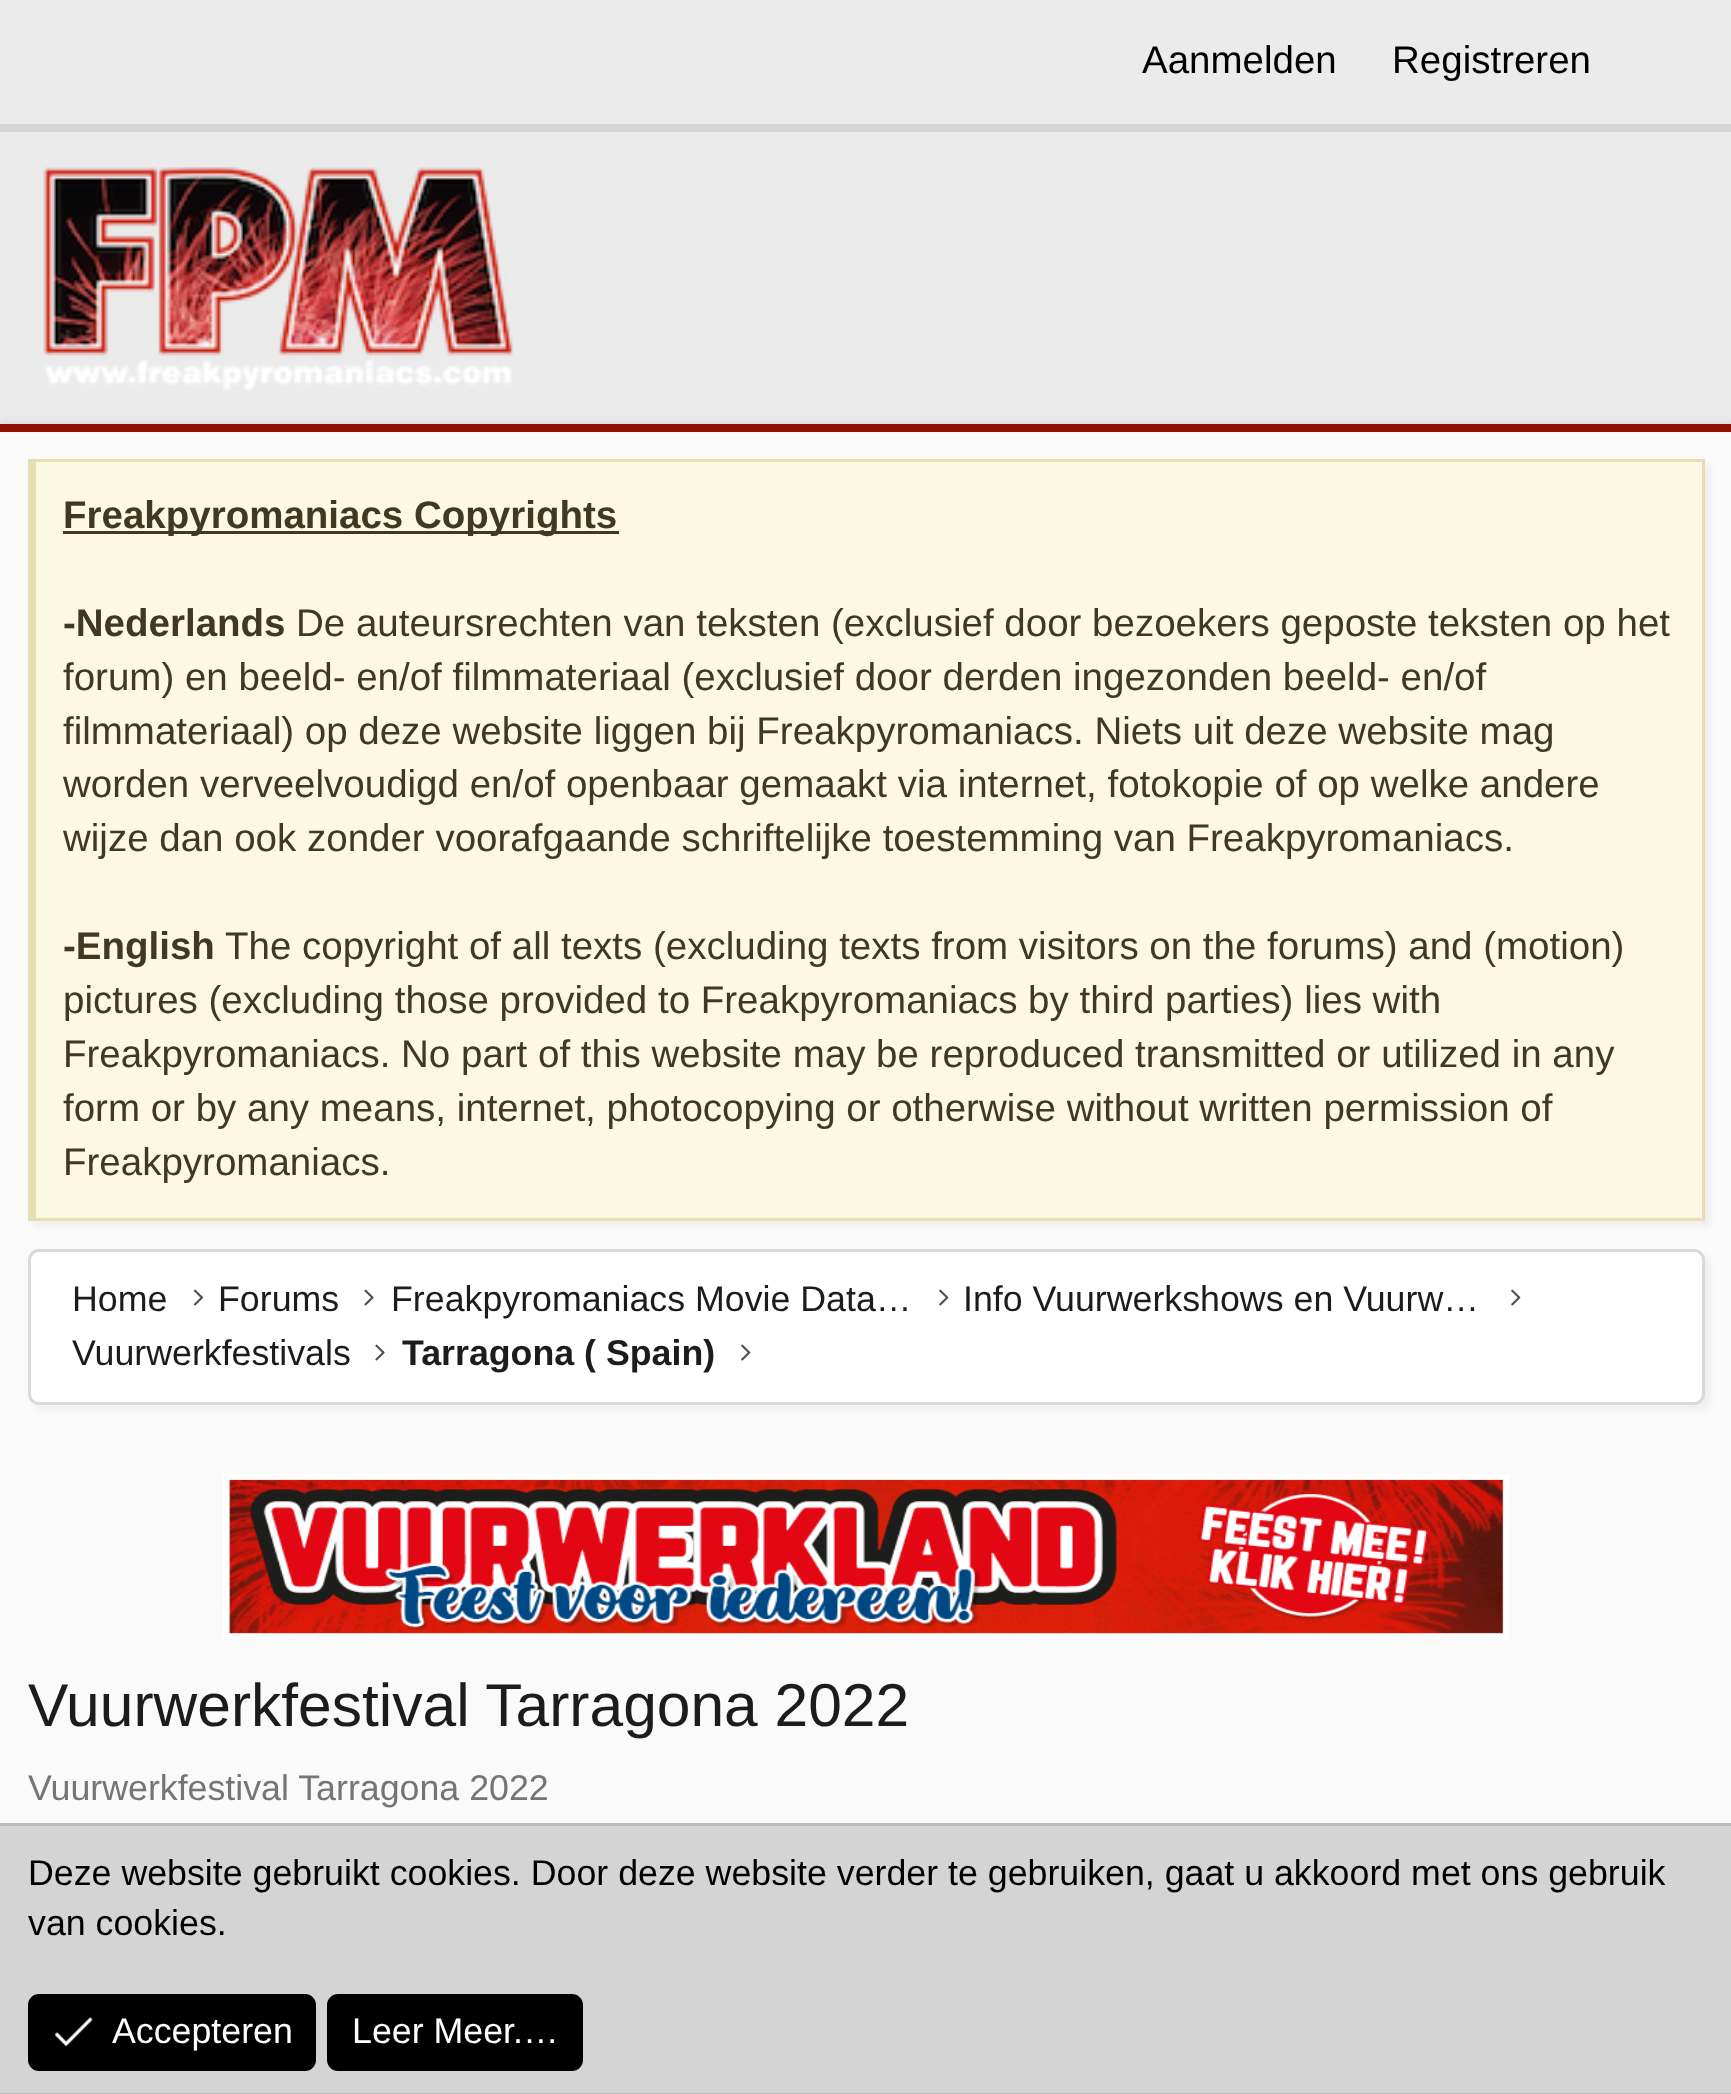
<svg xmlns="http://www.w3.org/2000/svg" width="1731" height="2094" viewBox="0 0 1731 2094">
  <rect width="100%" height="100%" fill="#ebebeb"/>
  <path d="M0 124h1731v8H0z" fill="#d4d4d4"/>
  <image x="43" y="167" width="470" height="224" href="img/1.png"/>
  <path d="M0 426h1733v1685H0z" fill="#c2c2c2" filter="blur(5.5px)"/>
  <path d="M0 432h1731v1391H0z" fill="#fafafa"/>
  <path d="M0 424h1731v8H0z" fill="#8f0e00"/>
  <path d="M33 465h1678v762H33z" fill="#0000000a" filter="blur(3px)"/>
  <path d="M36 462h1666v756H36z" fill="#fcf8e3"/>
  <path d="M28 459h1677v3H28z" fill="#e7deb1"/>
  <path d="M1702 459h3v762H1702z" fill="#e7deb1"/>
  <path d="M28 1218h1677v3H28z" fill="#e7deb1"/>
  <path d="M28 459h8v762H28z" fill="#e7deb1"/>
  <path d="M63 531h556v3H63z" fill="#3f3922"/>
  <rect x="33" y="1254" width="1678" height="157" rx="11" fill="#0000000a" filter="blur(3px)"/>
  <rect x="29.5" y="1250.5" width="1674" height="153" rx="9.5" fill="#fff" stroke="#d9d9d9" stroke-width="3"/>
  <image x="193" y="1289" width="11" height="17" href="img/2.png"/>
  <image x="364" y="1289" width="10" height="17" href="img/3.png"/>
  <image x="939" y="1289" width="10" height="17" href="img/4.png"/>
  <image x="1511" y="1289" width="10" height="17" href="img/4.png"/>
  <image x="375" y="1344" width="10" height="17" href="img/3.png"/>
  <image x="741" y="1344" width="10" height="17" href="img/4.png"/>
  <image x="223" y="1474" width="1286" height="165" href="img/5.png"/>
  <path d="M2 1826h1729v267H2z" fill="#d4d4d4"/>
  <path d="M0 1823h1731v3H0z" fill="#bababa"/>
  <path d="M0 2093h1731v1H0z" fill="#bababa"/>
  <rect x="29.5" y="1995.5" width="285" height="74" rx="9.5" fill="#000" stroke="#000" stroke-width="3"/>
  <image x="55" y="2017" width="38" height="30" href="img/6.png"/>
  <rect x="328.5" y="1995.5" width="253" height="74" rx="9.5" fill="#000" stroke="#000" stroke-width="3"/>
  <g font-family="Liberation Sans" font-size="38.5" fill="#000">
    <text x="1142" y="73">Aanmelden</text>
    <text x="1392" y="73">Registreren</text>
  </g>
  <g font-family="Liberation Sans" font-size="38.5" font-weight="bold" fill="#3f3922">
    <text x="63" y="528">Freakpyromaniacs Copyrights</text>
    <text x="63" y="636">-Nederlands</text>
  </g>
  <g font-family="Liberation Sans" font-size="38.5" fill="#3f3922">
    <text x="296" y="636">De auteursrechten van teksten (exclusief door bezoekers geposte teksten op het</text>
    <text x="63" y="690">forum) en beeld- en/of filmmateriaal (exclusief door derden ingezonden beeld- en/of</text>
    <text x="63" y="744">filmmateriaal) op deze website liggen bij Freakpyromaniacs. Niets uit deze website mag</text>
    <text x="63" y="797">worden verveelvoudigd en/of openbaar gemaakt via internet, fotokopie of op welke andere</text>
    <text x="63" y="851">wijze dan ook zonder voorafgaande schriftelijke toestemming van Freakpyromaniacs.</text>
  </g>
  <text x="63" y="959" font-family="Liberation Sans" font-size="38.5" font-weight="bold" fill="#3f3922">-English</text>
  <g font-family="Liberation Sans" font-size="38.5" fill="#3f3922">
    <text x="225" y="959">The copyright of all texts (excluding texts from visitors on the forums) and (motion)</text>
    <text x="63" y="1013">pictures (excluding those provided to Freakpyromaniacs by third parties) lies with</text>
    <text x="63" y="1067">Freakpyromaniacs. No part of this website may be reproduced transmitted or utilized in any</text>
    <text x="63" y="1121">form or by any means, internet, photocopying or otherwise without written permission of</text>
    <text x="63" y="1175">Freakpyromaniacs.</text>
  </g>
  <g font-family="Liberation Sans" font-size="35.75" fill="#1c1c1c">
    <text x="72" y="1311">Home</text>
    <text x="218" y="1311">Forums</text>
    <text x="391" y="1311">Freakpyromaniacs Movie Data…</text>
    <text x="963" y="1311">Info Vuurwerkshows en Vuurw…</text>
    <text x="72" y="1365">Vuurwerkfestivals</text>
  </g>
  <text x="402" y="1365" font-family="Liberation Sans" font-size="35.75" font-weight="bold" fill="#1c1c1c">Tarragona ( Spain)</text>
  <text x="28" y="1726" font-family="Liberation Sans" font-size="60.5" fill="#1c1c1c">Vuurwerkfestival Tarragona 2022</text>
  <text x="28" y="1800" font-family="Liberation Sans" font-size="35.75" fill="#757575">Vuurwerkfestival Tarragona 2022</text>
  <g font-family="Liberation Sans" font-size="35.75" fill="#000">
    <text x="28" y="1885">Deze website gebruikt cookies. Door deze website verder te gebruiken, gaat u akkoord met ons gebruik</text>
    <text x="28" y="1935">van cookies.</text>
  </g>
  <g font-family="Liberation Sans" font-size="35.75" fill="#fff">
    <text x="112" y="2043">Accepteren</text>
    <text x="352" y="2043">Leer Meer.…</text>
  </g>
</svg>
